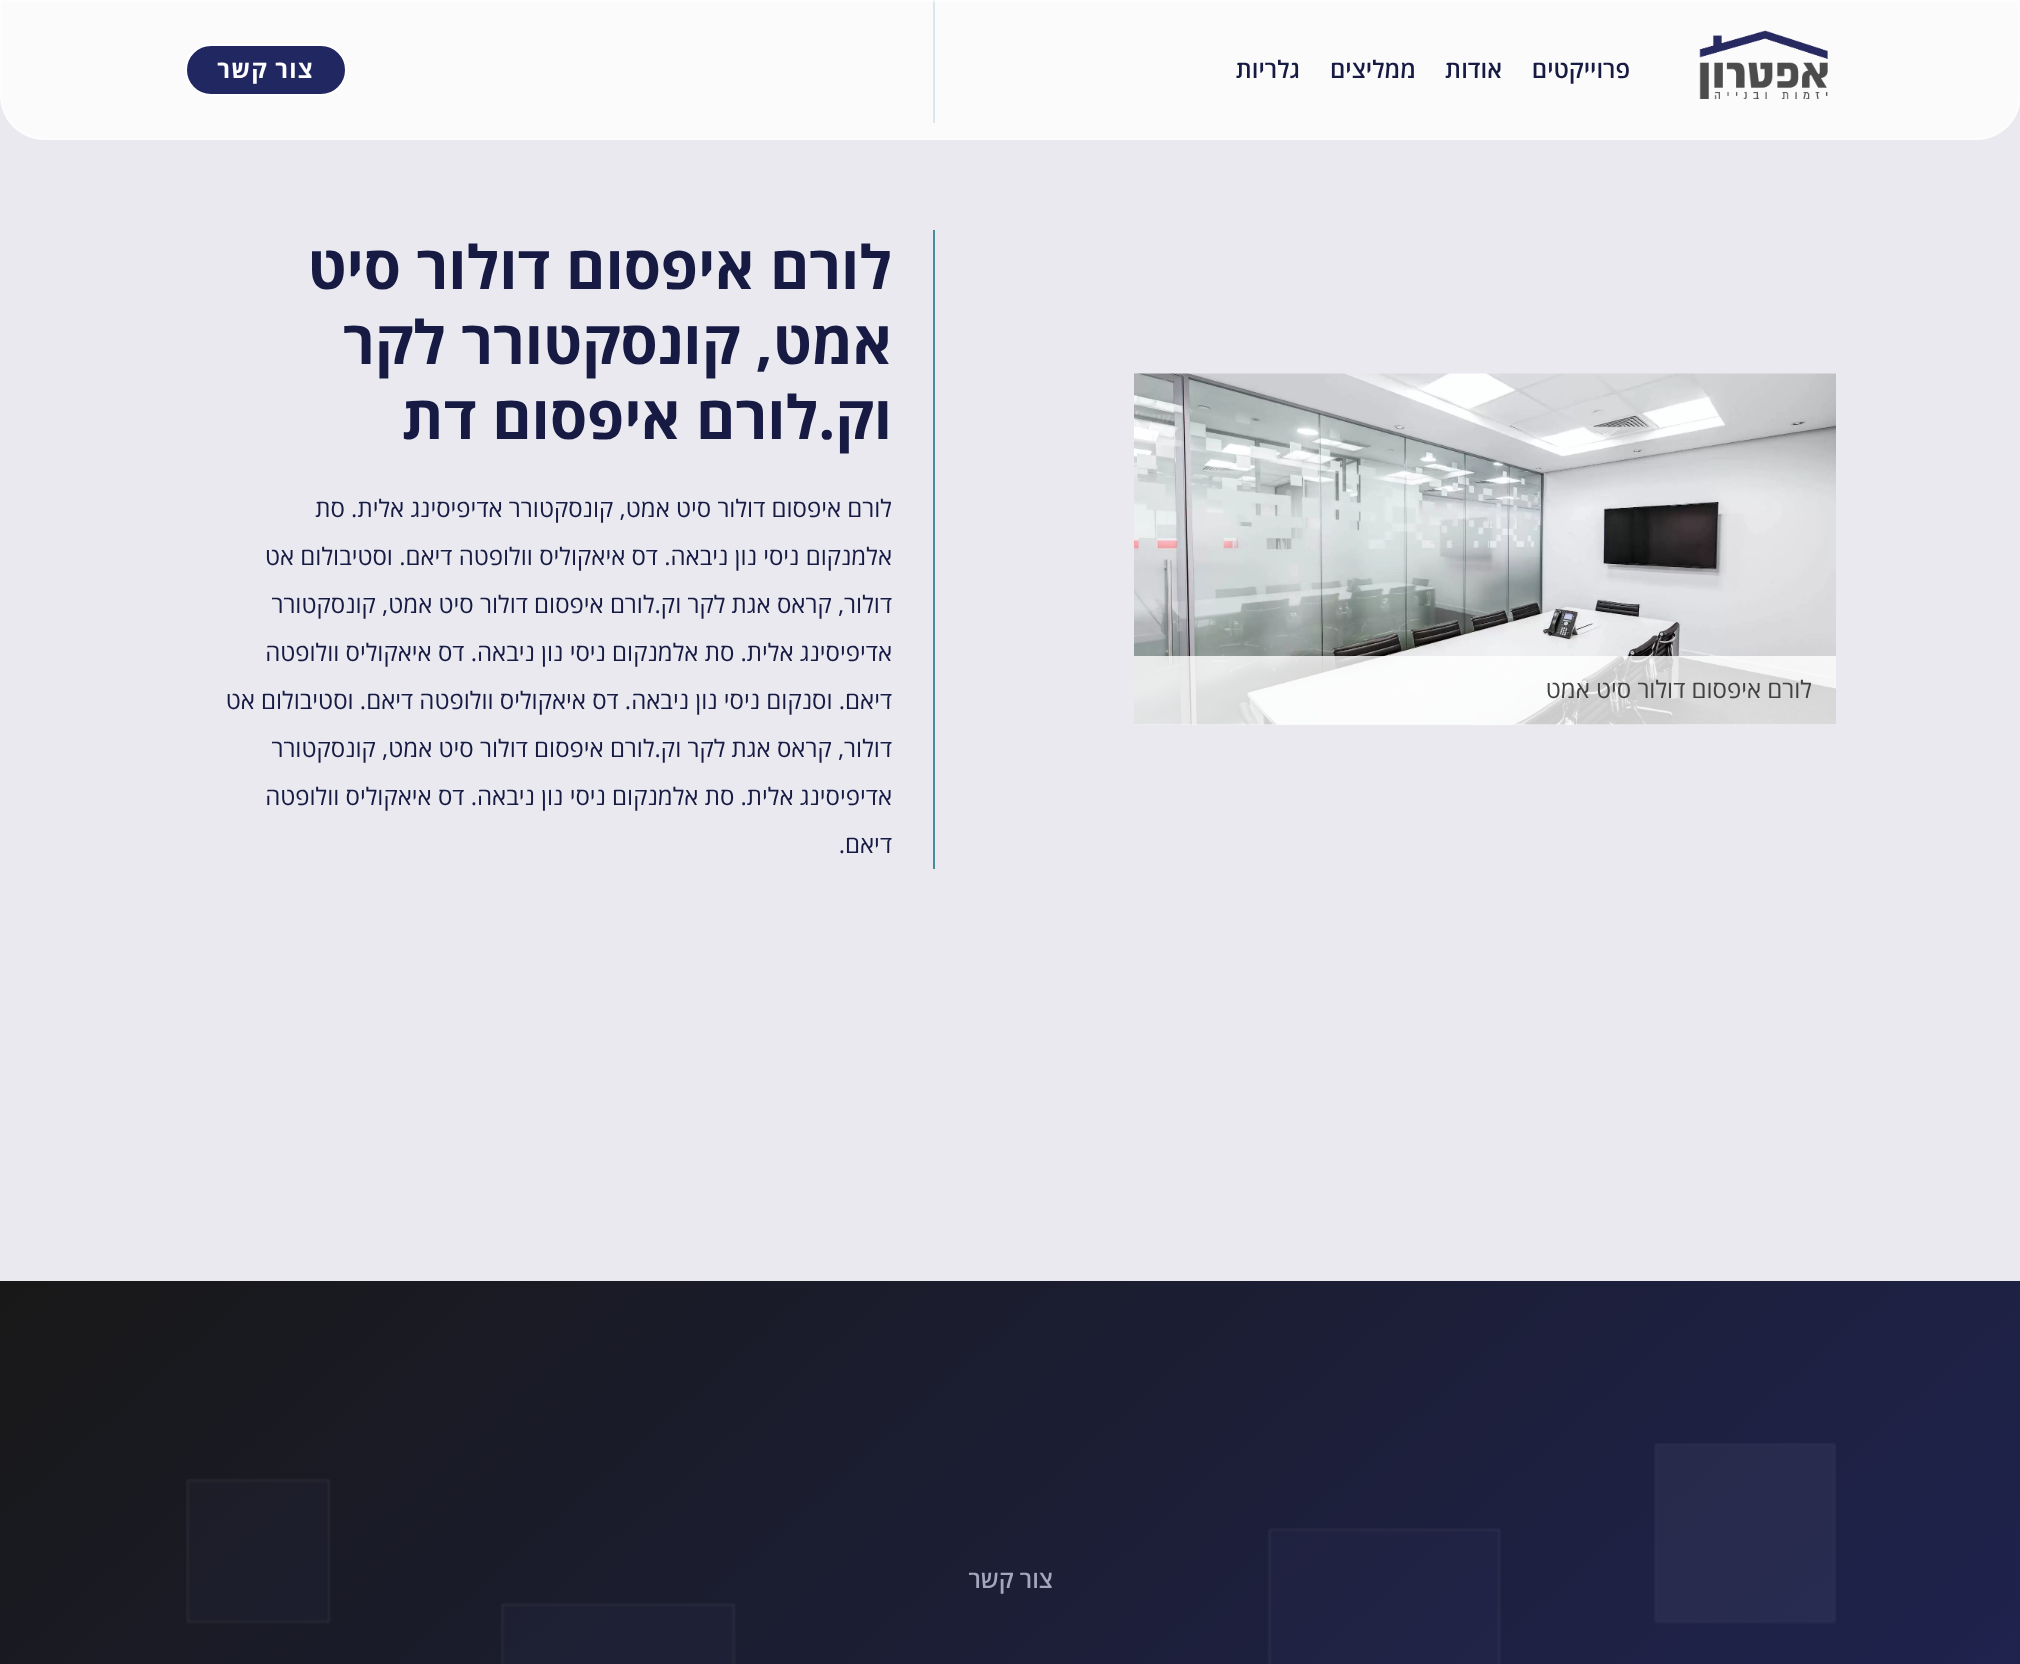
<svg xmlns="http://www.w3.org/2000/svg" width="2020" height="1664" viewBox="0 0 2020 1664">
  <defs>
    <linearGradient id="g1" gradientUnits="userSpaceOnUse" x1="261" y1="1046" x2="1759" y2="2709"><stop offset="0" stop-color="#181818"/><stop offset="1" stop-color="#212761"/></linearGradient>
  </defs>
  <rect width="100%" height="100%" fill="#e9e9ef"/>
  <path d="M933 0h2v123H933z" fill="#438e99"/>
  <path d="M0 0H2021V95C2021 120 2001 140 1976 140H45C20 140 0 120 0 95Z" fill="#ffffffcc"/>
  <path d="M1 1H2020V95C2020 119.5 2000.5 139 1976 139H45C20.5 139 1 119.5 1 95Z" fill="none" stroke="#ffffff80" stroke-width="2"/>
  <image x="1699" y="30" width="129" height="69" href="img/1.png"/>
  <rect x="186" y="45" width="160" height="50" rx="25" fill="#212761" stroke="#fff" stroke-width="2"/>
  <image x="1134" y="373" width="702" height="352" href="img/2.png"/>
  <path d="M1134 656h702v69H1134z" fill="#ffffffcc"/>
  <path d="M933 230h2v639H933z" fill="#438e99"/>
  <path d="M0 1281h2020v383H0z" fill="url(#g1)"/>
  <image x="186" y="1443" width="1650" height="221" href="img/3.png"/>
  <g font-family="Open Sans" font-size="24" font-weight="600" direction="rtl" fill="#171b44">
    <text x="1630" y="78">פרוייקטים</text>
    <text x="1502" y="78">אודות</text>
    <text x="1416" y="78">ממליצים</text>
    <text x="1300" y="78">גלריות</text>
  </g>
  <text x="314" y="78" font-family="Open Sans" font-size="24" font-weight="bold" letter-spacing="1.25" direction="rtl" fill="#fff">צור קשר</text>
  <text x="1812" y="698" font-family="Open Sans" font-size="24" direction="rtl" fill="#424242">לורם איפסום דולור סיט אמט</text>
  <g font-family="Open Sans" font-size="60" font-weight="bold" direction="rtl" fill="#171b44">
    <text x="892" y="289">לורם איפסום דולור סיט</text>
    <text x="892" y="364">אמט, קונסקטורר לקר</text>
    <text x="892" y="439">וק.לורם איפסום דת</text>
  </g>
  <g font-family="Open Sans" font-size="24" direction="rtl" fill="#171b44">
    <text x="892" y="517">לורם איפסום דולור סיט אמט, קונסקטורר אדיפיסינג אלית. סת</text>
    <text x="892" y="565">אלמנקום ניסי נון ניבאה. דס איאקוליס וולופטה דיאם. וסטיבולום אט</text>
    <text x="892" y="613">דולור, קראס אגת לקר וק.לורם איפסום דולור סיט אמט, קונסקטורר</text>
    <text x="892" y="661">אדיפיסינג אלית. סת אלמנקום ניסי נון ניבאה. דס איאקוליס וולופטה</text>
    <text x="892" y="709">דיאם. וסנקום ניסי נון ניבאה. דס איאקוליס וולופטה דיאם. וסטיבולום אט</text>
    <text x="892" y="757">דולור, קראס אגת לקר וק.לורם איפסום דולור סיט אמט, קונסקטורר</text>
    <text x="892" y="805">אדיפיסינג אלית. סת אלמנקום ניסי נון ניבאה. דס איאקוליס וולופטה</text>
    <text x="892" y="853">דיאם.</text>
  </g>
  <text x="1053" y="1588" font-family="Open Sans" font-size="24" font-weight="600" direction="rtl" fill="#a4a6be">צור קשר</text>
</svg>
